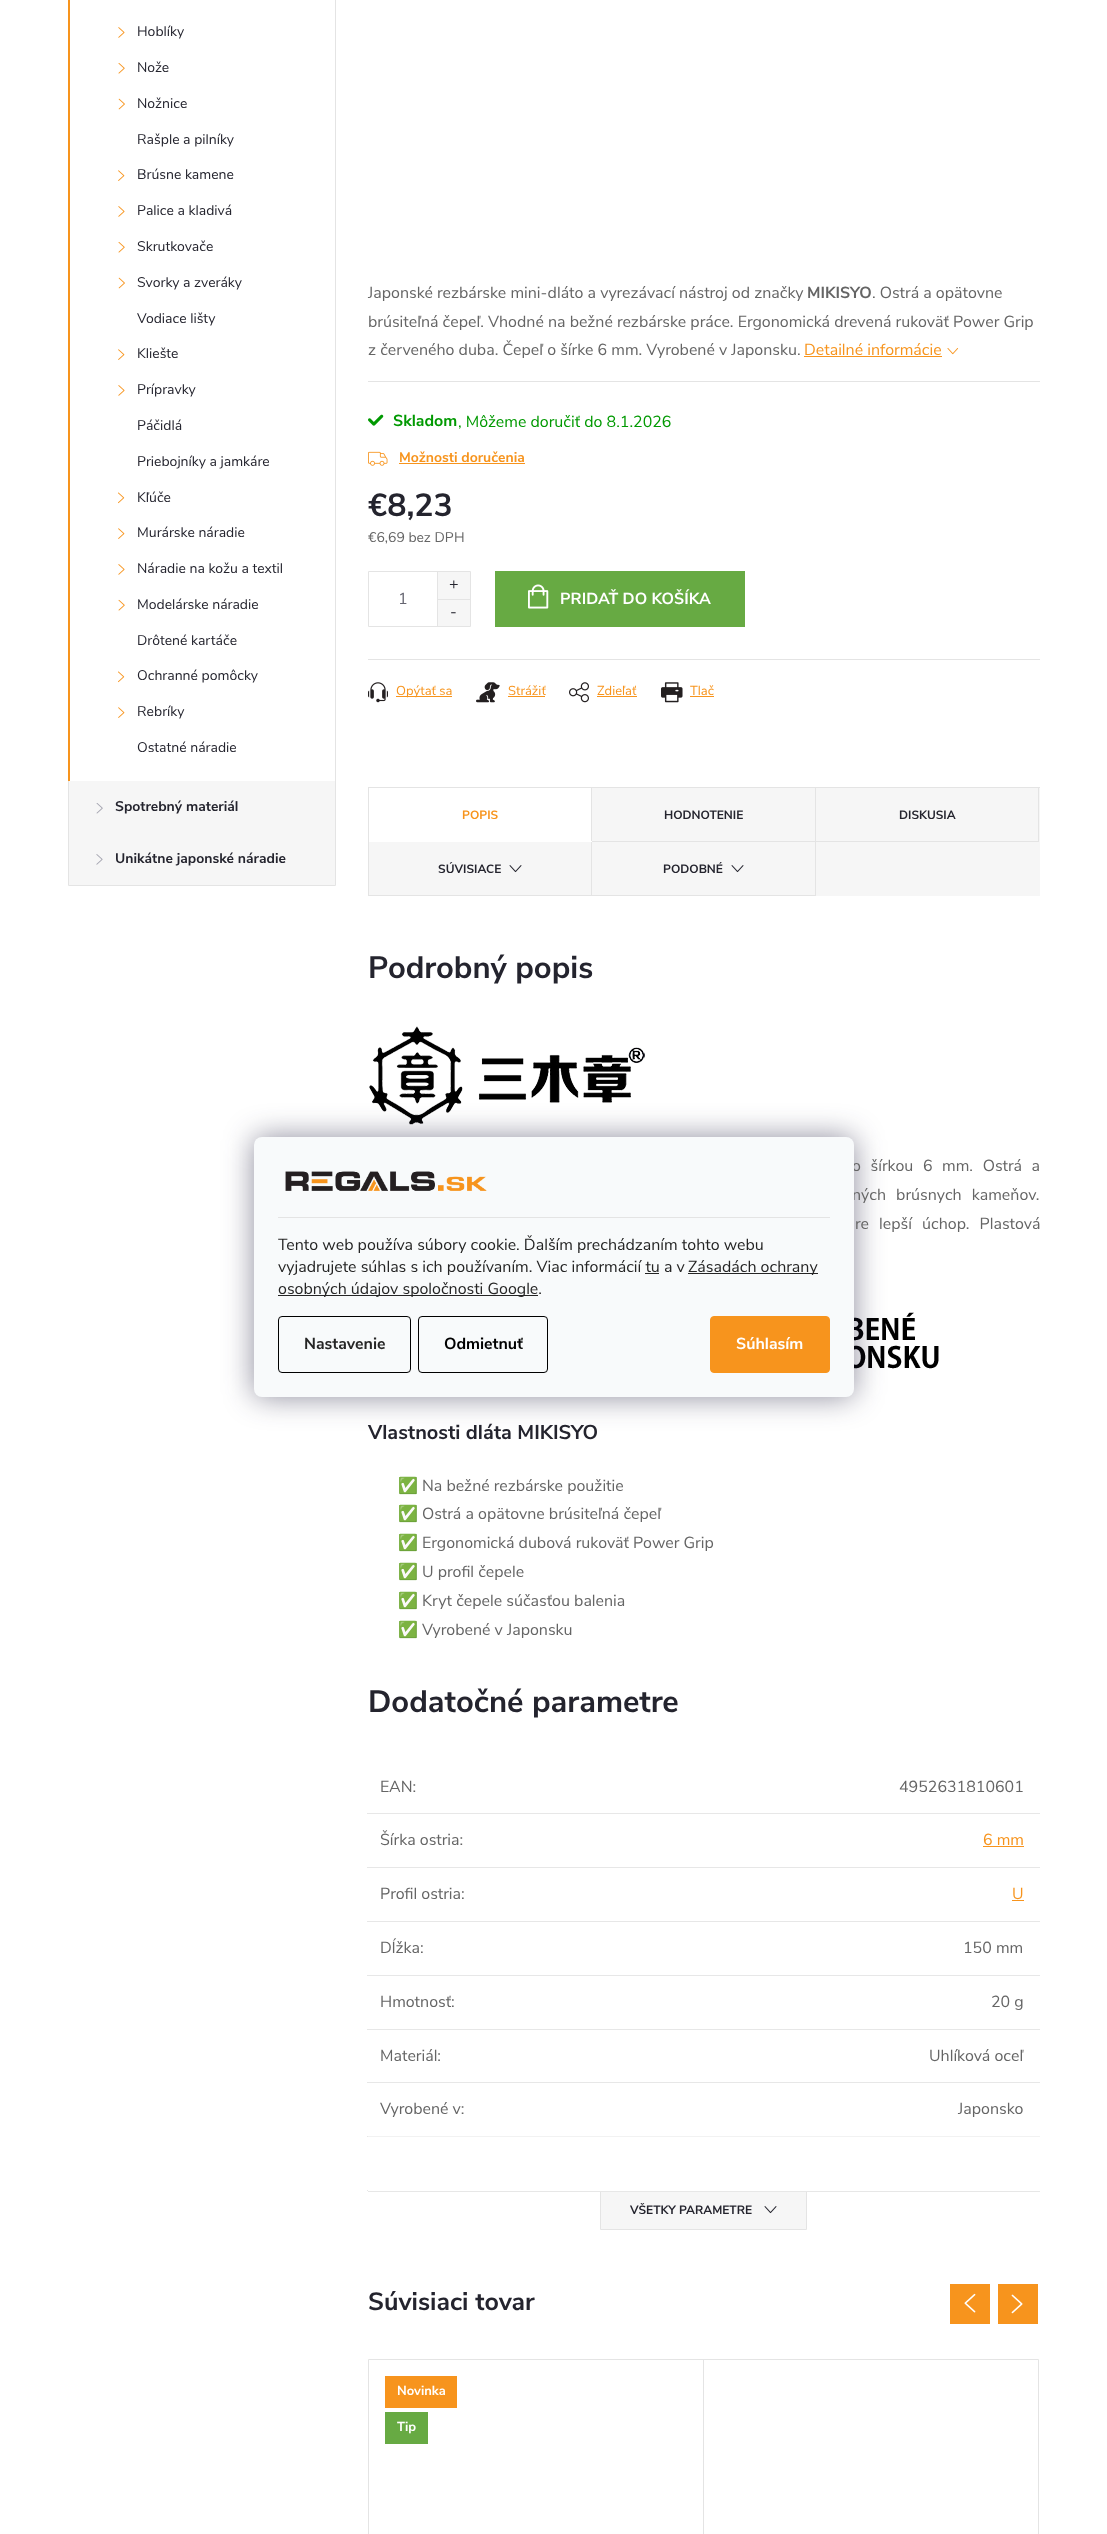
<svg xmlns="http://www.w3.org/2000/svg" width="1107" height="2534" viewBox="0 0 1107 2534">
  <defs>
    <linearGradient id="g1" gradientUnits="userSpaceOnUse" x1="704" y1="2131" x2="704" y2="2230"><stop offset="0" stop-color="#fff" stop-opacity="0.4"/><stop offset="0.45" stop-color="#fff"/></linearGradient>
  </defs>
  <rect width="100%" height="100%" fill="#fff"/>
  <path d="M69 781h266v104H69z" fill="#f6f6f6"/>
  <path d="M68.5 -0.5h267v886H68.5z" fill="none" stroke="#e4e4e4"/>
  <path d="M68 0h2v781H68z" fill="#f7941d"/>
  <image x="118" y="27" width="7" height="11" href="img/1.png"/>
  <image x="118" y="63" width="7" height="11" href="img/2.png"/>
  <image x="118" y="98" width="7" height="12" href="img/3.png"/>
  <image x="118" y="170" width="7" height="11" href="img/4.png"/>
  <image x="118" y="206" width="7" height="11" href="img/5.png"/>
  <image x="118" y="242" width="7" height="11" href="img/6.png"/>
  <image x="118" y="277" width="7" height="12" href="img/7.png"/>
  <image x="118" y="349" width="7" height="11" href="img/8.png"/>
  <image x="118" y="385" width="7" height="11" href="img/9.png"/>
  <image x="118" y="492" width="7" height="12" href="img/10.png"/>
  <image x="118" y="528" width="7" height="11" href="img/11.png"/>
  <image x="118" y="564" width="7" height="11" href="img/12.png"/>
  <image x="118" y="599" width="7" height="12" href="img/13.png"/>
  <image x="118" y="671" width="7" height="12" href="img/14.png"/>
  <image x="118" y="707" width="7" height="11" href="img/15.png"/>
  <image x="96" y="803" width="7" height="11" href="img/16.png"/>
  <image x="96" y="854" width="7" height="11" href="img/17.png"/>
  <path d="M368 381h672v1H368z" fill="#e4e4e4"/>
  <path d="M804 356h138v1H804z" fill="#f7941d"/>
  <image x="947" y="348" width="12" height="7" href="img/18.png"/>
  <image x="368" y="414" width="16" height="12" href="img/19.png"/>
  <image x="368" y="451" width="20" height="15" href="img/20.png"/>
  <path d="M399 463h126v1H399z" fill="#f7941d"/>
  <path d="M368.5 571.5h102v55H368.5z" fill="none" stroke="#e4e4e4"/>
  <path d="M438 572h32v27H438z" fill="#f6f6f6"/>
  <path d="M437 572h1v27H437z" fill="#e4e4e4"/>
  <path d="M438 600h32v26H438z" fill="#f6f6f6"/>
  <path d="M437 599h33v1H437z" fill="#e4e4e4"/>
  <path d="M437 599h1v27H437z" fill="#e4e4e4"/>
  <path d="M495 571h250v56H495z" fill="#67aa43"/>
  <image x="528" y="584" width="21" height="25" href="img/21.png"/>
  <path d="M368 659h672v1H368z" fill="#e4e4e4"/>
  <image x="368" y="682" width="20" height="21" href="img/22.png"/>
  <path d="M396 696h56v1H396z" fill="#f7941d"/>
  <image x="476" y="682" width="24" height="21" href="img/23.png"/>
  <path d="M508 696h37v1H508z" fill="#f7941d"/>
  <image x="569" y="682" width="20" height="21" href="img/24.png"/>
  <path d="M597 696h40v1H597z" fill="#f7941d"/>
  <image x="661" y="682" width="22" height="21" href="img/25.png"/>
  <path d="M690 696h24v1H690z" fill="#f7941d"/>
  <path d="M369 788h671v108H369z" fill="#f6f6f6"/>
  <path d="M368 787h672v1H368z" fill="#e4e4e4"/>
  <path d="M368 787h1v109H368z" fill="#e4e4e4"/>
  <path d="M369 788h222v53H369z" fill="#fff"/>
  <path d="M591 788h1v108H591z" fill="#e4e4e4"/>
  <path d="M369 841h223v1H369z" fill="#fff"/>
  <path d="M815 788h1v108H815z" fill="#e4e4e4"/>
  <path d="M592 841h224v1H592z" fill="#e4e4e4"/>
  <path d="M1038 788h1v54H1038z" fill="#e4e4e4"/>
  <path d="M816 841h223v1H816z" fill="#e4e4e4"/>
  <path d="M369 895h447v1H369z" fill="#e4e4e4"/>
  <image x="509" y="865" width="13" height="8" href="img/26.png"/>
  <image x="731" y="865" width="13" height="8" href="img/26.png"/>
  <image x="369" y="1026" width="276" height="99" href="img/27.png"/>
  <image x="854" y="1312" width="85" height="57" href="img/28.png"/>
  <path d="M367 1813h673v1H367z" fill="#e7e7e7"/>
  <path d="M367 1867h673v1H367z" fill="#e7e7e7"/>
  <path d="M983 1846h41v1H983z" fill="#f7941d"/>
  <path d="M367 1921h673v1H367z" fill="#e7e7e7"/>
  <path d="M1012 1900h12v1H1012z" fill="#f7941d"/>
  <path d="M367 1975h673v1H367z" fill="#e7e7e7"/>
  <path d="M367 2029h673v1H367z" fill="#e7e7e7"/>
  <path d="M367 2082h673v1H367z" fill="#e7e7e7"/>
  <path d="M367 2136h673v1H367z" fill="#e7e7e7"/>
  <path d="M367 2190h1v1H367z" fill="#e7e7e7"/>
  <path d="M368 2136h672v1H368z" fill="url(#g1)"/>
  <path d="M600.5 2191.5h206v38H600.5z" fill="#f6f6f6" stroke="#e4e4e4"/>
  <path d="M368 2191h672v1H368z" fill="#e7e7e7"/>
  <image x="764" y="2206" width="13" height="8" href="img/26.png"/>
  <path d="M368.5 2359.5h670v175H368.5z" fill="none" stroke="#e4e4e4"/>
  <path d="M950 2284h40v40H950z" fill="#f7941d"/>
  <image x="964" y="2293" width="12" height="20" href="img/29.png"/>
  <path d="M998 2284h40v40H998z" fill="#f7941d"/>
  <image x="1011" y="2294" width="12" height="20" href="img/30.png"/>
  <path d="M703 2360h1v174H703z" fill="#e4e4e4"/>
  <path d="M385 2376h72v32H385z" fill="#f7941d"/>
  <path d="M385 2412h43v32H385z" fill="#67aa43"/>
  <rect x="254" y="1137" width="600" height="260" rx="8" fill="#1b193980" filter="blur(15px)"/>
  <g font-family="Nunito Sans" font-size="14" fill="#24242e">
    <text x="137" y="36">Hoblíky</text>
    <text x="137" y="72">Nože</text>
    <text x="137" y="108">Nožnice</text>
    <text x="137" y="144">Rašple a pilníky</text>
    <text x="137" y="179">Brúsne kamene</text>
    <text x="137" y="215">Palice a kladivá</text>
    <text x="137" y="251">Skrutkovače</text>
    <text x="137" y="287">Svorky a zveráky</text>
    <text x="137" y="323">Vodiace lišty</text>
    <text x="137" y="358">Kliešte</text>
    <text x="137" y="394">Prípravky</text>
    <text x="137" y="430">Páčidlá</text>
    <text x="137" y="466">Priebojníky a jamkáre</text>
    <text x="137" y="502">Kľúče</text>
    <text x="137" y="537">Murárske náradie</text>
    <text x="137" y="573">Náradie na kožu a textil</text>
    <text x="137" y="609">Modelárske náradie</text>
    <text x="137" y="645">Drôtené kartáče</text>
    <text x="137" y="680">Ochranné pomôcky</text>
    <text x="137" y="716">Rebríky</text>
    <text x="137" y="752">Ostatné náradie</text>
  </g>
  <g font-family="Nunito Sans" font-size="14" font-weight="bold" fill="#24242e">
    <text x="115" y="811">Spotrebný materiál</text>
    <text x="115" y="863">Unikátne japonské náradie</text>
  </g>
  <text x="368" y="298" font-family="Nunito Sans" font-size="16" fill="#656565">Japonské rezbárske mini-dláto a vyrezávací nástroj od značky</text>
  <text x="807" y="298" font-family="Nunito Sans" font-size="16" font-weight="bold" fill="#656565">MIKISYO</text>
  <g font-family="Nunito Sans" font-size="16" fill="#656565">
    <text x="872" y="298">. Ostrá a opätovne</text>
    <text x="368" y="327">brúsiteľná čepeľ. Vhodné na bežné rezbárske práce. Ergonomická drevená rukoväť Power Grip</text>
    <text x="368" y="355">z červeného duba. Čepeľ o šírke 6 mm. Vyrobené v Japonsku.</text>
  </g>
  <text x="804" y="355" font-family="Nunito Sans" font-size="16" fill="#f7941d">Detailné informácie</text>
  <text x="393" y="426" font-family="Nunito Sans" font-size="16" font-weight="bold" fill="#009901">Skladom</text>
  <text x="458" y="427" font-family="Nunito Sans" font-size="16" fill="#009901">, Môžeme doručiť do 8.1.2026</text>
  <text x="399" y="462" font-family="Nunito Sans" font-size="14" font-weight="bold" fill="#f7941d">Možnosti doručenia</text>
  <text x="368" y="516" font-family="Nunito Sans" font-size="32" font-weight="bold" fill="#24242e">€8,23</text>
  <text x="368" y="542" font-family="Nunito Sans" font-size="14" fill="#656565">€6,69 bez DPH</text>
  <text x="449" y="589" font-family="Nunito Sans" font-size="16" fill="#24242e">+</text>
  <text x="398" y="604" font-family="Nunito Sans" font-size="16" fill="#656570">1</text>
  <text x="450" y="617" font-family="Nunito Sans" font-size="16" fill="#24242e">-</text>
  <text x="560" y="604" font-family="Nunito Sans" font-size="16" font-weight="bold" fill="#fff">PRIDAŤ DO KOŠÍKA</text>
  <g font-family="Nunito Sans" font-size="13" fill="#f7941d">
    <text x="396" y="695">Opýtať sa</text>
    <text x="508" y="695">Strážiť</text>
    <text x="597" y="695">Zdieľať</text>
    <text x="690" y="695">Tlač</text>
  </g>
  <text x="462" y="819" font-family="Nunito Sans" font-size="12" font-weight="bold" fill="#f7941d">POPIS</text>
  <g font-family="Nunito Sans" font-size="12" font-weight="bold" fill="#24242e">
    <text x="664" y="819">HODNOTENIE</text>
    <text x="899" y="819">DISKUSIA</text>
    <text x="438" y="873">SÚVISIACE</text>
    <text x="663" y="873">PODOBNÉ</text>
  </g>
  <text x="368" y="978" font-family="Nunito Sans" font-size="31" font-weight="bold" fill="#24242e">Podrobný popis</text>
  <g font-family="Nunito Sans" font-size="16" fill="#656565">
    <text x="852" y="1171" word-spacing="5.5">o šírkou 6 mm. Ostrá a</text>
    <text x="852" y="1200" word-spacing="6">ných brúsnych kameňov.</text>
    <text x="855" y="1229" word-spacing="6">re lepší úchop. Plastová</text>
  </g>
  <text x="368" y="1439" font-family="Nunito Sans" font-size="20" font-weight="bold" fill="#24242e">Vlastnosti dláta MIKISYO</text>
  <text x="398" y="1491" font-family="Noto Color Emoji" font-size="16" fill="#656565">✅</text>
  <text x="422" y="1491" font-family="Nunito Sans" font-size="16" fill="#656565">Na bežné rezbárske použitie</text>
  <text x="398" y="1519" font-family="Noto Color Emoji" font-size="16" fill="#656565">✅</text>
  <text x="422" y="1519" font-family="Nunito Sans" font-size="16" fill="#656565">Ostrá a opätovne brúsiteľná čepeľ</text>
  <text x="398" y="1548" font-family="Noto Color Emoji" font-size="16" fill="#656565">✅</text>
  <text x="422" y="1548" font-family="Nunito Sans" font-size="16" fill="#656565">Ergonomická dubová rukoväť Power Grip</text>
  <text x="398" y="1577" font-family="Noto Color Emoji" font-size="16" fill="#656565">✅</text>
  <text x="422" y="1577" font-family="Nunito Sans" font-size="16" fill="#656565">U profil čepele</text>
  <text x="398" y="1606" font-family="Noto Color Emoji" font-size="16" fill="#656565">✅</text>
  <text x="422" y="1606" font-family="Nunito Sans" font-size="16" fill="#656565">Kryt čepele súčasťou balenia</text>
  <text x="398" y="1635" font-family="Noto Color Emoji" font-size="16" fill="#656565">✅</text>
  <text x="422" y="1635" font-family="Nunito Sans" font-size="16" fill="#656565">Vyrobené v Japonsku</text>
  <text x="368" y="1712" font-family="Nunito Sans" font-size="31" font-weight="bold" fill="#24242e">Dodatočné parametre</text>
  <g font-family="Nunito Sans" font-size="16" fill="#656565">
    <text x="380" y="1792">EAN:</text>
    <text x="899" y="1792">4952631810601</text>
    <text x="380" y="1845">Šírka ostria:</text>
  </g>
  <text x="983" y="1845" font-family="Nunito Sans" font-size="16" fill="#f7941d">6 mm</text>
  <text x="380" y="1899" font-family="Nunito Sans" font-size="16" fill="#656565">Profil ostria:</text>
  <text x="1012" y="1899" font-family="Nunito Sans" font-size="16" fill="#f7941d">U</text>
  <g font-family="Nunito Sans" font-size="16" fill="#656565">
    <text x="380" y="1953">Dĺžka:</text>
    <text x="963" y="1953">150 mm</text>
    <text x="380" y="2007">Hmotnosť:</text>
    <text x="991" y="2007">20 g</text>
    <text x="380" y="2061">Materiál:</text>
    <text x="929" y="2061">Uhlíková oceľ</text>
    <text x="380" y="2114">Vyrobené v:</text>
    <text x="958" y="2114">Japonsko</text>
  </g>
  <text x="630" y="2214" font-family="Nunito Sans" font-size="12" font-weight="bold" fill="#24242e">VŠETKY PARAMETRE</text>
  <text x="368" y="2310" font-family="Nunito Sans" font-size="25" font-weight="bold" fill="#24242e">Súvisiaci tovar</text>
  <g font-family="Nunito Sans" font-size="13" font-weight="bold" fill="#fff">
    <text x="397" y="2395">Novinka</text>
    <text x="397" y="2431">Tip</text>
  </g>
  <rect x="254" y="1137" width="600" height="260" rx="8" fill="#f8fafb"/>
  <path d="M278 1217h552v1H278z" fill="#e4e4e4"/>
  <image x="285" y="1171" width="202" height="20" href="img/31.png"/>
  <g font-family="Nunito Sans" font-size="16" fill="#252525">
    <text x="278" y="1250">Tento web používa súbory cookie. Ďalším prechádzaním tohto webu</text>
    <text x="278" y="1272">vyjadrujete súhlas s ich používaním. Viac informácií tu a v</text>
  </g>
  <path d="M688 1273h130v1H688z" fill="#252525"/>
  <text x="688" y="1272" font-family="Nunito Sans" font-size="16" fill="#252525">Zásadách ochrany</text>
  <path d="M645 1273h14v1H645z" fill="#252525"/>
  <path d="M278 1295h260v1H278z" fill="#252525"/>
  <text x="278" y="1294" font-family="Nunito Sans" font-size="16" fill="#252525">osobných údajov spoločnosti Google.</text>
  <rect x="278.5" y="1316.5" width="132" height="56" rx="3.5" fill="none" stroke="#000"/>
  <text x="304" y="1349" font-family="Nunito Sans" font-size="16" font-weight="bold" fill="#252525">Nastavenie</text>
  <rect x="418.5" y="1316.5" width="129" height="56" rx="3.5" fill="none" stroke="#000"/>
  <text x="444" y="1349" font-family="Nunito Sans" font-size="16" font-weight="bold" fill="#000">Odmietnuť</text>
  <rect x="710.5" y="1316.5" width="119" height="56" rx="3.5" fill="#f7941d" stroke="#f7941d"/>
  <text x="736" y="1349" font-family="Nunito Sans" font-size="16" font-weight="bold" fill="#fff">Súhlasím</text>
</svg>
